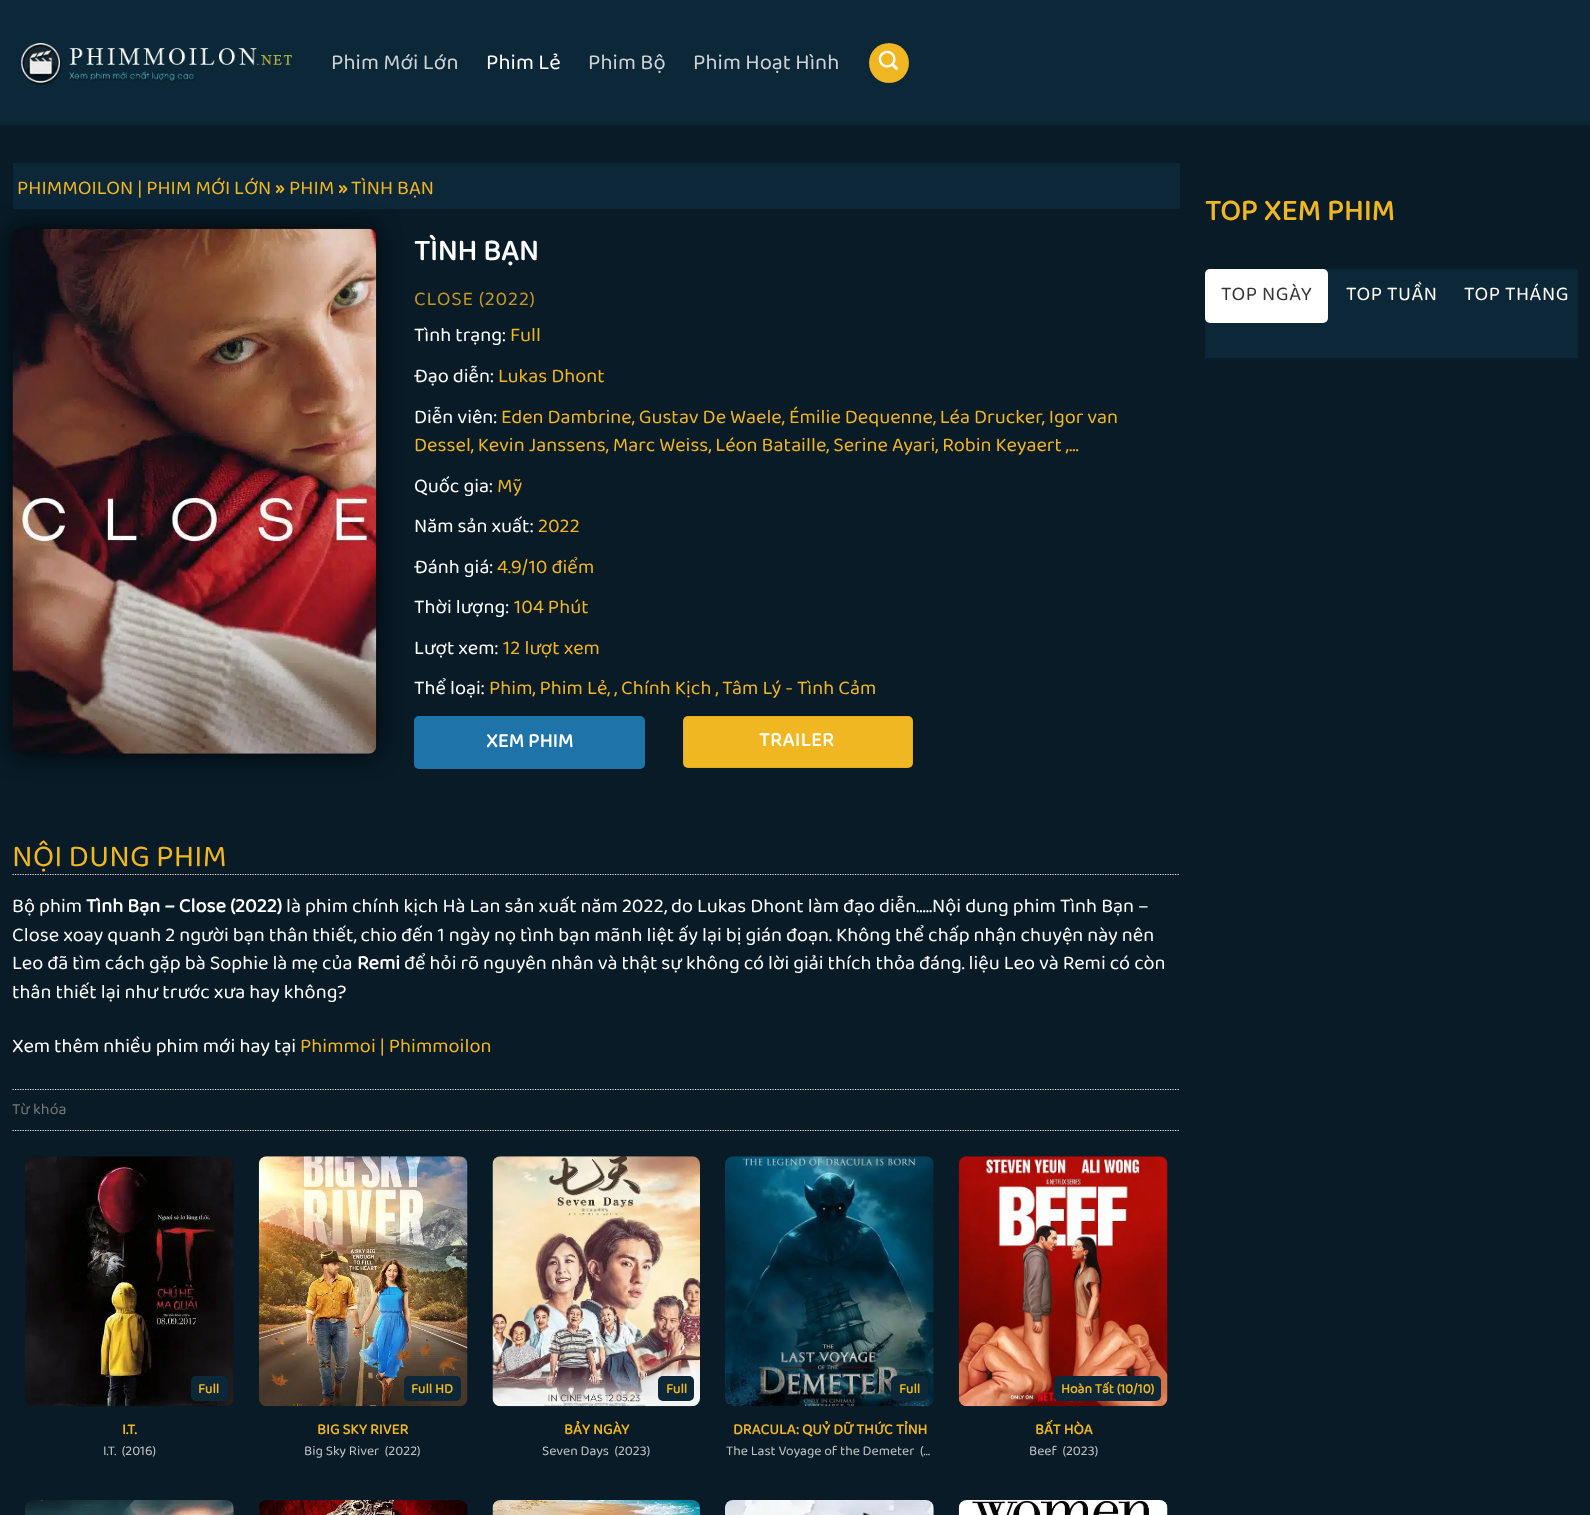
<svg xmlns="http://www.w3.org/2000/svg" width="1590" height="1515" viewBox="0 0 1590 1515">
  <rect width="100%" height="100%" fill="#081b27"/>
  <path d="M0 0h1590v125H0z" fill="#0c2738"/>
  <image x="20" y="43" width="272" height="42" href="img/1.png"/>
  <circle cx="889" cy="63" r="20" fill="#f1b722"/>
  <path d="M869.5 43.5h39v39H869.5z" fill="none" stroke="#0000000d"/>
  <image x="878" y="50" width="20" height="20" href="img/2.png"/>
  <path d="M13 163h1167v46H13z" fill="#0c2738"/>
  <rect x="13" y="229" width="363" height="525" rx="8" fill="#000000d6" filter="blur(12.5px)"/>
  <image x="12" y="228" width="365" height="526" href="img/3.png"/>
  <rect x="414" y="716" width="231" height="53" rx="5" fill="#1e74a9"/>
  <rect x="683" y="716" width="230" height="52" rx="5" fill="#f1b722"/>
  <path d="M683.5 716.5h229v51H683.5z" fill="none" stroke="#0000000d"/>
  <path d="M12.5 874.5H1180" fill="none" stroke="#e3e3e3" stroke-width="1.2" stroke-dasharray="1.25 1.25"/>
  <path d="M12.5 1089.5H1180" fill="none" stroke="#ececec" stroke-width="1.2" stroke-dasharray="1.25 1.25"/>
  <path d="M12.5 1130.5H1180" fill="none" stroke="#ececec" stroke-width="1.2" stroke-dasharray="1.25 1.25"/>
  <image x="25" y="1156" width="209" height="251" href="img/4.png"/>
  <rect x="191" y="1376" width="37" height="25" rx="5" fill="#0c2738"/>
  <image x="258" y="1156" width="210" height="251" href="img/5.png"/>
  <rect x="404" y="1376" width="57" height="25" rx="5" fill="#0c2738"/>
  <image x="492" y="1156" width="208" height="251" href="img/6.png"/>
  <rect x="658" y="1376" width="36" height="25" rx="5" fill="#0c2738"/>
  <image x="725" y="1156" width="209" height="251" href="img/7.png"/>
  <rect x="891" y="1376" width="37" height="25" rx="5" fill="#0c2738"/>
  <image x="958" y="1156" width="210" height="251" href="img/8.png"/>
  <rect x="1054" y="1376" width="107" height="25" rx="5" fill="#0c2738"/>
  <image x="25" y="1500" width="209" height="15" href="img/9.png"/>
  <image x="259" y="1500" width="209" height="15" href="img/10.png"/>
  <image x="492" y="1500" width="208" height="15" href="img/11.png"/>
  <image x="725" y="1500" width="209" height="15" href="img/12.png"/>
  <image x="958" y="1500" width="210" height="15" href="img/13.png"/>
  <path d="M1205 269h373v89H1205z" fill="#0c2738"/>
  <rect x="1205" y="269" width="123" height="54" rx="5" fill="#fff"/>
  <text x="331" y="69" font-family="'Baloo Thambi 2'" font-size="22" fill="#ced4d7">Phim Mới Lớn</text>
  <text x="486" y="69" font-family="'Baloo Thambi 2'" font-size="22" fill="#fff">Phim Lẻ</text>
  <g font-family="'Baloo Thambi 2'" font-size="22" fill="#ced4d7">
    <text x="588" y="69">Phim Bộ</text>
    <text x="693" y="69">Phim Hoạt Hình</text>
  </g>
  <text x="17" y="194" font-family="'Baloo Thambi 2'" font-size="20" fill="#f1b722">PHIMMOILON | PHIM MỚI LỚN</text>
  <text x="275" y="194" font-family="'Baloo Thambi 2'" font-size="20" font-weight="bold" fill="#f1b722">»</text>
  <text x="289" y="194" font-family="'Baloo Thambi 2'" font-size="20" fill="#f1b722">PHIM</text>
  <text x="338" y="194" font-family="'Baloo Thambi 2'" font-size="20" font-weight="bold" fill="#f1b722">»</text>
  <text x="351" y="194" font-family="'Baloo Thambi 2'" font-size="20" fill="#f1b722">TÌNH BẠN</text>
  <text x="414" y="260" font-family="'Baloo Thambi 2'" font-size="30" font-weight="bold" fill="#fff">TÌNH BẠN</text>
  <text x="414" y="305" font-family="'Baloo Thambi 2'" font-size="20" letter-spacing="0.8" fill="#c29823">CLOSE (2022)</text>
  <text x="414" y="341" font-family="'Baloo Thambi 2'" font-size="20" fill="#fff">Tình trạng:</text>
  <text x="510" y="341" font-family="'Baloo Thambi 2'" font-size="20" fill="#f1b722">Full</text>
  <text x="414" y="382" font-family="'Baloo Thambi 2'" font-size="20" fill="#fff">Đạo diễn:</text>
  <text x="498" y="382" font-family="'Baloo Thambi 2'" font-size="20" fill="#f1b722">Lukas Dhont</text>
  <text x="414" y="423" font-family="'Baloo Thambi 2'" font-size="20" fill="#fff">Diễn viên:</text>
  <g font-family="'Baloo Thambi 2'" font-size="20" fill="#f1b722">
    <text x="501" y="423">Eden Dambrine, Gustav De Waele, Émilie Dequenne, Léa Drucker, Igor van</text>
    <text x="414" y="451">Dessel, Kevin Janssens, Marc Weiss, Léon Bataille, Serine Ayari, Robin Keyaert ,...</text>
  </g>
  <text x="414" y="492" font-family="'Baloo Thambi 2'" font-size="20" fill="#fff">Quốc gia:</text>
  <text x="497" y="492" font-family="'Baloo Thambi 2'" font-size="20" fill="#f1b722">Mỹ</text>
  <text x="414" y="532" font-family="'Baloo Thambi 2'" font-size="20" fill="#fff">Năm sản xuất:</text>
  <text x="538" y="532" font-family="'Baloo Thambi 2'" font-size="20" fill="#f1b722">2022</text>
  <text x="414" y="573" font-family="'Baloo Thambi 2'" font-size="20" fill="#fff">Đánh giá:</text>
  <text x="497" y="573" font-family="'Baloo Thambi 2'" font-size="20" fill="#f1b722">4.9/10 điểm</text>
  <text x="414" y="613" font-family="'Baloo Thambi 2'" font-size="20" fill="#fff">Thời lượng:</text>
  <text x="514" y="613" font-family="'Baloo Thambi 2'" font-size="20" fill="#f1b722">104 Phút</text>
  <text x="414" y="654" font-family="'Baloo Thambi 2'" font-size="20" fill="#fff">Lượt xem:</text>
  <text x="503" y="654" font-family="'Baloo Thambi 2'" font-size="20" fill="#f1b722">12 lượt xem</text>
  <text x="414" y="694" font-family="'Baloo Thambi 2'" font-size="20" fill="#fff">Thể loại:</text>
  <text x="489" y="694" font-family="'Baloo Thambi 2'" font-size="20" fill="#f1b722">Phim, Phim Lẻ, , Chính Kịch , Tâm Lý - Tình Cảm</text>
  <text x="486" y="747" font-family="'Baloo Thambi 2'" font-size="20" font-weight="bold" fill="#fff">XEM PHIM</text>
  <text x="759" y="746" font-family="'Baloo Thambi 2'" font-size="20" font-weight="bold" letter-spacing="0.5" fill="#fff">TRAILER</text>
  <text x="12" y="866" font-family="'Baloo Thambi 2'" font-size="31.25" fill="#f1b722">NỘI DUNG PHIM</text>
  <text x="12" y="912" font-family="'Baloo Thambi 2'" font-size="20" fill="#fff">Bộ phim</text>
  <text x="86" y="912" font-family="'Baloo Thambi 2'" font-size="20" font-weight="bold" fill="#fff">Tình Bạn – Close (2022)</text>
  <g font-family="'Baloo Thambi 2'" font-size="20" fill="#fff">
    <text x="286" y="912">là phim chính kịch Hà Lan sản xuất năm 2022, do Lukas Dhont làm đạo diễn…..Nội dung phim Tình Bạn –</text>
    <text x="12" y="941">Close xoay quanh 2 người bạn thân thiết, chio đến 1 ngày nọ tình bạn mãnh liệt ấy lại bị gián đoạn. Không thể chấp nhận chuyện này nên</text>
    <text x="12" y="969">Leo đã tìm cách gặp bà Sophie là mẹ của</text>
  </g>
  <text x="357" y="969" font-family="'Baloo Thambi 2'" font-size="20" font-weight="bold" fill="#fff">Remi</text>
  <g font-family="'Baloo Thambi 2'" font-size="20" fill="#fff">
    <text x="404" y="969">để hỏi rõ nguyên nhân và thật sự không có lời giải thích thỏa đáng. liệu Leo và Remi có còn</text>
    <text x="12" y="998">thân thiết lại như trước xưa hay không?</text>
    <text x="12" y="1052">Xem thêm nhiều phim mới hay tại</text>
  </g>
  <text x="300" y="1052" font-family="'Baloo Thambi 2'" font-size="20" fill="#f1b722">Phimmoi | Phimmoilon</text>
  <text x="12" y="1114" font-family="'Baloo Thambi 2'" font-size="16" fill="#777">Từ khóa</text>
  <text x="198" y="1393" font-family="'Baloo Thambi 2'" font-size="13.75" font-weight="bold" fill="#f1b722">Full</text>
  <text x="122" y="1434" font-family="'Baloo Thambi 2'" font-size="15" font-weight="bold" fill="#f1b722">I.T.</text>
  <text x="103" y="1455" font-family="'Baloo Thambi 2'" font-size="13.75" fill="#c4c4c4" xml:space="preserve">I.T.  (2016)</text>
  <text x="411" y="1393" font-family="'Baloo Thambi 2'" font-size="13.75" font-weight="bold" fill="#f1b722">Full HD</text>
  <text x="317" y="1434" font-family="'Baloo Thambi 2'" font-size="15" font-weight="bold" fill="#f1b722">BIG SKY RIVER</text>
  <text x="304" y="1455" font-family="'Baloo Thambi 2'" font-size="13.75" fill="#c4c4c4" xml:space="preserve">Big Sky River  (2022)</text>
  <text x="666" y="1393" font-family="'Baloo Thambi 2'" font-size="13.75" font-weight="bold" fill="#f1b722">Full</text>
  <text x="564" y="1434" font-family="'Baloo Thambi 2'" font-size="15" font-weight="bold" fill="#f1b722">BẢY NGÀY</text>
  <text x="542" y="1455" font-family="'Baloo Thambi 2'" font-size="13.75" fill="#c4c4c4" xml:space="preserve">Seven Days  (2023)</text>
  <text x="899" y="1393" font-family="'Baloo Thambi 2'" font-size="13.75" font-weight="bold" fill="#f1b722">Full</text>
  <text x="733" y="1434" font-family="'Baloo Thambi 2'" font-size="15" font-weight="bold" fill="#f1b722">DRACULA: QUỶ DỮ THỨC TỈNH</text>
  <text x="726" y="1455" font-family="'Baloo Thambi 2'" font-size="13.75" fill="#c4c4c4" xml:space="preserve">The Last Voyage of the Demeter  (…</text>
  <text x="1061" y="1393" font-family="'Baloo Thambi 2'" font-size="13.75" font-weight="bold" fill="#f1b722">Hoàn Tất (10/10)</text>
  <text x="1035" y="1434" font-family="'Baloo Thambi 2'" font-size="15" font-weight="bold" fill="#f1b722">BẤT HÒA</text>
  <text x="1029" y="1455" font-family="'Baloo Thambi 2'" font-size="13.75" fill="#c4c4c4" xml:space="preserve">Beef  (2023)</text>
  <text x="1205" y="220" font-family="'Baloo Thambi 2'" font-size="30" font-weight="bold" fill="#f1b722">TOP XEM PHIM</text>
  <text x="1221" y="300" font-family="'Baloo Thambi 2'" font-size="20" letter-spacing="0.5" fill="#353535">TOP NGÀY</text>
  <g font-family="'Baloo Thambi 2'" font-size="20" letter-spacing="0.5" fill="#fff">
    <text x="1346" y="300">TOP TUẦN</text>
    <text x="1464" y="300">TOP THÁNG</text>
  </g>
</svg>
